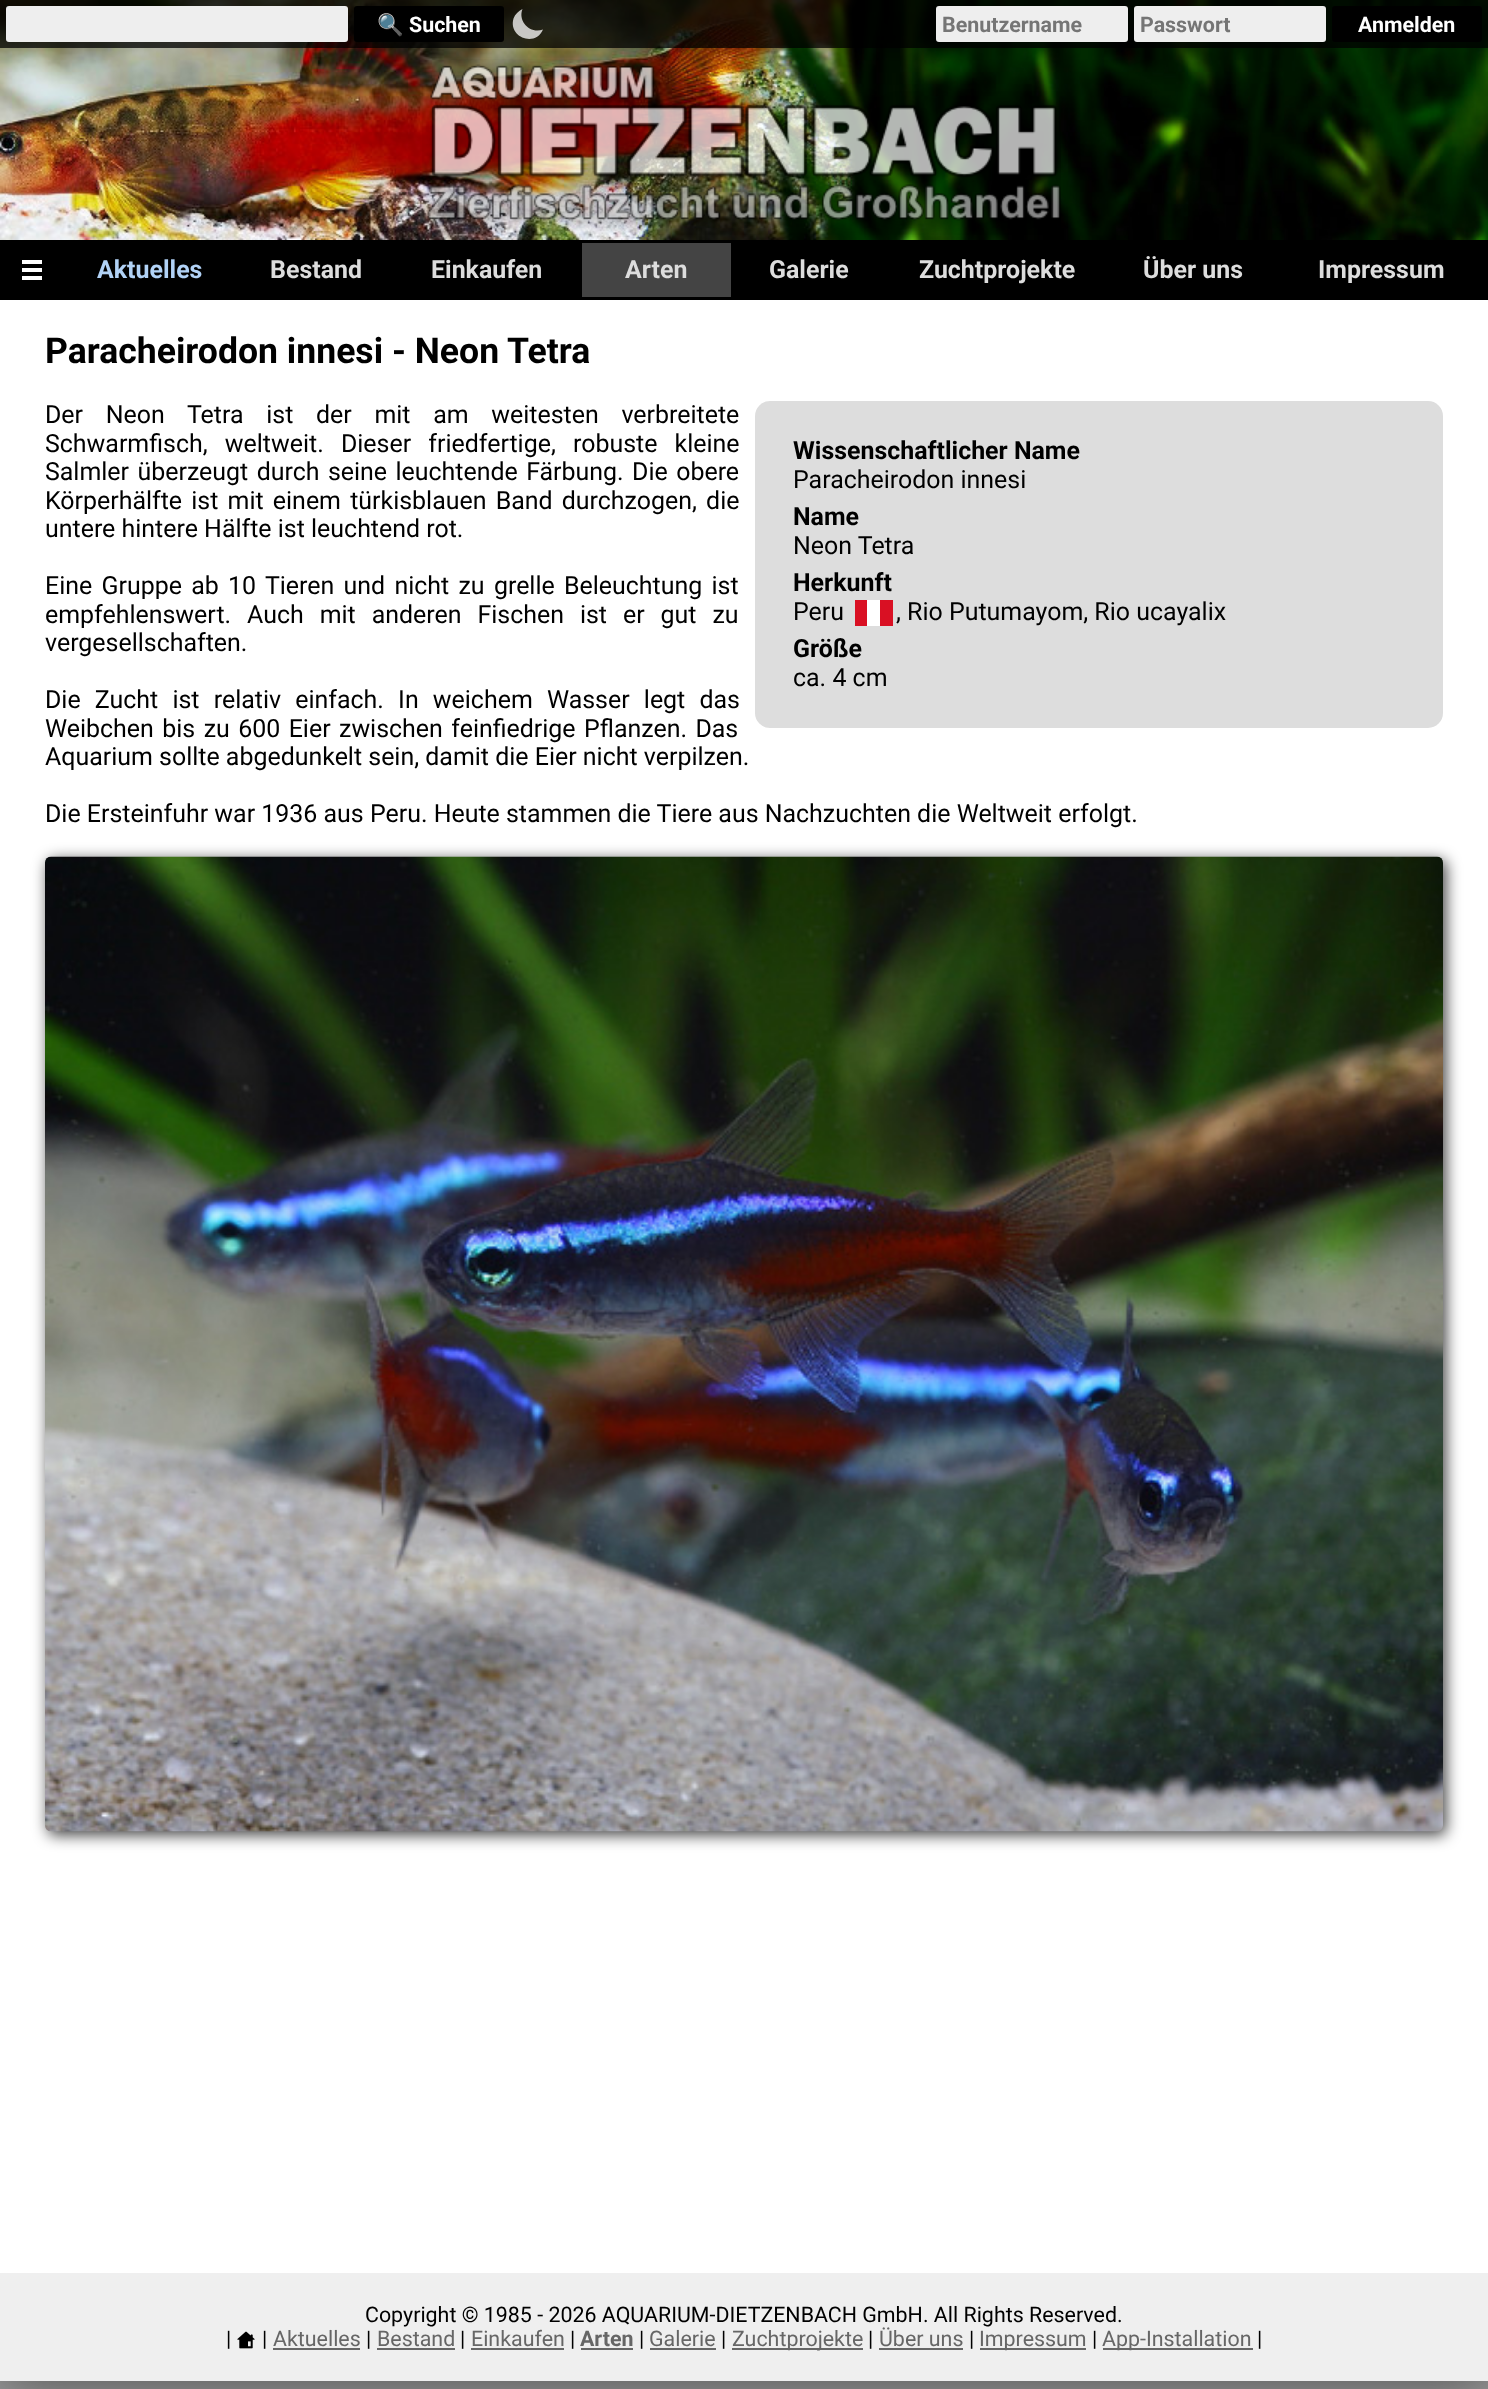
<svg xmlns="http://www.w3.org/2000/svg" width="1488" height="2389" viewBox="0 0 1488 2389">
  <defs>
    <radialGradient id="g1" gradientUnits="userSpaceOnUse" cx="0" cy="0" r="1" gradientTransform="matrix(106 0 0 25 429 24)"><stop offset="0" stop-color="#222"/><stop offset="0" stop-color="#000"/></radialGradient>
    <radialGradient id="g2" gradientUnits="userSpaceOnUse" cx="0" cy="0" r="1" gradientTransform="matrix(106 0 0 25 1407 24)"><stop offset="0" stop-color="#222"/><stop offset="0" stop-color="#000"/></radialGradient>
  </defs>
  <rect width="100%" height="100%" fill="#999"/>
  <path d="M2 2h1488v2380H2z" fill="#00000080" filter="blur(30px)"/>
  <path d="M0 300h1488v1973H0z" fill="#fff"/>
  <image x="0" y="0" width="1488" height="240" href="img/1.png"/>
  <image x="422" y="59" width="639" height="176" href="img/2.png"/>
  <path d="M0 0h1488v48H0z" fill="#000000bf"/>
  <rect x="6" y="6" width="342" height="36" rx="3" fill="#eee"/>
  <rect x="354" y="6" width="150" height="36" rx="3" fill="url(#g1)"/>
  <path d="M522.5 9C518.5 11 515 14.5 513.5 18.5C508 37.5 535.5 47.5 543 29.5C530.5 34.5 517.5 21.5 522.5 9Z" fill="#ffffffbf" fill-rule="evenodd"/>
  <rect x="936" y="6" width="192" height="36" rx="3" fill="#eee"/>
  <rect x="1134" y="6" width="192" height="36" rx="3" fill="#eee"/>
  <rect x="1332" y="6" width="150" height="36" rx="3" fill="url(#g2)"/>
  <path d="M0 240h1488v60H0z" fill="#000"/>
  <path d="M22 260h20v4H22z" fill="#fff"/>
  <path d="M22 268h20v4H22z" fill="#fff"/>
  <path d="M22 276h20v4H22z" fill="#fff"/>
  <path d="M582 243h149v54H582z" fill="#444"/>
  <rect x="755" y="401" width="688" height="327" rx="15" fill="#ddd"/>
  <path d="M855 600h38v26H855z" fill="#d91023"/>
  <path d="M867 600h13v26H867z" fill="#fff"/>
  <rect x="48" y="860" width="1398" height="975" rx="6" fill="#000000bf" filter="blur(7.5px)"/>
  <image x="45" y="856" width="1398" height="976" href="img/3.png"/>
  <path d="M0 2273h1488v108H0z" fill="#efefef"/>
  <image x="237" y="2331" width="18" height="18" href="img/4.png"/>
  <path d="M273 2348h87v2H273z" fill="#666"/>
  <path d="M377 2348h78v2H377z" fill="#666"/>
  <path d="M471 2348h93v2H471z" fill="#666"/>
  <path d="M581 2348h52v2H581z" fill="#666"/>
  <path d="M650 2348h66v2H650z" fill="#666"/>
  <path d="M732 2348h131v2H732z" fill="#666"/>
  <path d="M879 2348h84v2H879z" fill="#666"/>
  <path d="M980 2348h106v2H980z" fill="#666"/>
  <path d="M1103 2348h150v2H1103z" fill="#666"/>
  <text x="377" y="32" font-family="Noto Color Emoji" font-size="21.4" font-weight="bold" fill="#fff">🔍</text>
  <text x="409" y="32" font-family="Roboto" font-size="21.4" font-weight="bold" fill="#fff">Suchen</text>
  <g font-family="Roboto" font-size="21.4" font-weight="bold" fill="#757575">
    <text x="942" y="32">Benutzername</text>
    <text x="1140" y="32">Passwort</text>
  </g>
  <text x="1358" y="32" font-family="Roboto" font-size="21.4" font-weight="bold" fill="#fff">Anmelden</text>
  <text x="97" y="278" font-family="Roboto" font-size="24.95" font-weight="bold" fill="#b1d2f6">Aktuelles</text>
  <g font-family="Roboto" font-size="24.95" font-weight="bold" fill="#ddd">
    <text x="270" y="278">Bestand</text>
    <text x="431" y="278">Einkaufen</text>
    <text x="625" y="278">Arten</text>
    <text x="769" y="278">Galerie</text>
    <text x="919" y="278">Zuchtprojekte</text>
    <text x="1143" y="278">Über uns</text>
    <text x="1318" y="278">Impressum</text>
  </g>
  <text x="45" y="363" font-family="Roboto" font-size="35.6" font-weight="bold" fill="#000">Paracheirodon innesi - Neon Tetra</text>
  <g font-family="Roboto" font-size="24.95" fill="#000">
    <text x="45" y="423" word-spacing="16.5">Der Neon Tetra ist der mit am weitesten verbreitete</text>
    <text x="45" y="452" word-spacing="11">Schwarmfisch, weltweit. Dieser friedfertige, robuste kleine</text>
    <text x="45" y="480" word-spacing="2.25">Salmler überzeugt durch seine leuchtende Färbung. Die obere</text>
    <text x="45" y="509" word-spacing="3">Körperhälfte ist mit einem türkisblauen Band durchzogen, die</text>
    <text x="45" y="537">untere hintere Hälfte ist leuchtend rot.</text>
  </g>
  <text x="793" y="459" font-family="Roboto" font-size="24.95" font-weight="bold" fill="#000">Wissenschaftlicher Name</text>
  <text x="793" y="488" font-family="Roboto" font-size="24.95" fill="#000">Paracheirodon innesi</text>
  <text x="793" y="525" font-family="Roboto" font-size="24.95" font-weight="bold" fill="#000">Name</text>
  <text x="793" y="554" font-family="Roboto" font-size="24.95" fill="#000">Neon Tetra</text>
  <text x="793" y="591" font-family="Roboto" font-size="24.95" font-weight="bold" fill="#000">Herkunft</text>
  <g font-family="Roboto" font-size="24.95" fill="#000">
    <text x="793" y="620">Peru</text>
    <text x="896" y="620">, Rio Putumayom, Rio ucayalix</text>
  </g>
  <text x="793" y="657" font-family="Roboto" font-size="24.95" font-weight="bold" fill="#000">Größe</text>
  <g font-family="Roboto" font-size="24.95" fill="#000">
    <text x="793" y="686">ca. 4 cm</text>
    <text x="45" y="594" word-spacing="3.1">Eine Gruppe ab 10 Tieren und nicht zu grelle Beleuchtung ist</text>
    <text x="45" y="623" word-spacing="9.75">empfehlenswert. Auch mit anderen Fischen ist er gut zu</text>
    <text x="45" y="651">vergesellschaften.</text>
    <text x="45" y="708" word-spacing="8">Die Zucht ist relativ einfach. In weichem Wasser legt das</text>
    <text x="45" y="737" word-spacing="2.25">Weibchen bis zu 600 Eier zwischen feinfiedrige Pflanzen. Das</text>
    <text x="45" y="765">Aquarium sollte abgedunkelt sein, damit die Eier nicht verpilzen.</text>
    <text x="45" y="822">Die Ersteinfuhr war 1936 aus Peru. Heute stammen die Tiere aus Nachzuchten die Weltweit erfolgt.</text>
  </g>
  <g font-family="Roboto" font-size="21.4" fill="#000">
    <text x="365" y="2322">Copyright © 1985 - 2026 AQUARIUM-DIETZENBACH GmbH. All Rights Reserved.</text>
    <text x="226" y="2346">|</text>
    <text x="262" y="2346">|</text>
  </g>
  <text x="273" y="2346" font-family="Roboto" font-size="21.4" fill="#666">Aktuelles</text>
  <text x="366" y="2346" font-family="Roboto" font-size="21.4" fill="#000">|</text>
  <text x="377" y="2346" font-family="Roboto" font-size="21.4" fill="#666">Bestand</text>
  <text x="460" y="2346" font-family="Roboto" font-size="21.4" fill="#000">|</text>
  <text x="471" y="2346" font-family="Roboto" font-size="21.4" fill="#666">Einkaufen</text>
  <text x="570" y="2346" font-family="Roboto" font-size="21.4" fill="#000">|</text>
  <text x="580" y="2346" font-family="Roboto" font-size="21.4" font-weight="bold" fill="#666">Arten</text>
  <text x="639" y="2346" font-family="Roboto" font-size="21.4" fill="#000">|</text>
  <text x="649" y="2346" font-family="Roboto" font-size="21.4" fill="#666">Galerie</text>
  <text x="721" y="2346" font-family="Roboto" font-size="21.4" fill="#000">|</text>
  <text x="732" y="2346" font-family="Roboto" font-size="21.4" fill="#666">Zuchtprojekte</text>
  <text x="868" y="2346" font-family="Roboto" font-size="21.4" fill="#000">|</text>
  <text x="879" y="2346" font-family="Roboto" font-size="21.4" fill="#666">Über uns</text>
  <text x="969" y="2346" font-family="Roboto" font-size="21.4" fill="#000">|</text>
  <text x="979" y="2346" font-family="Roboto" font-size="21.4" fill="#666">Impressum</text>
  <text x="1092" y="2346" font-family="Roboto" font-size="21.4" fill="#000">|</text>
  <text x="1102" y="2346" font-family="Roboto" font-size="21.4" fill="#666">App-Installation</text>
  <text x="1257" y="2346" font-family="Roboto" font-size="21.4" fill="#000">|</text>
</svg>
